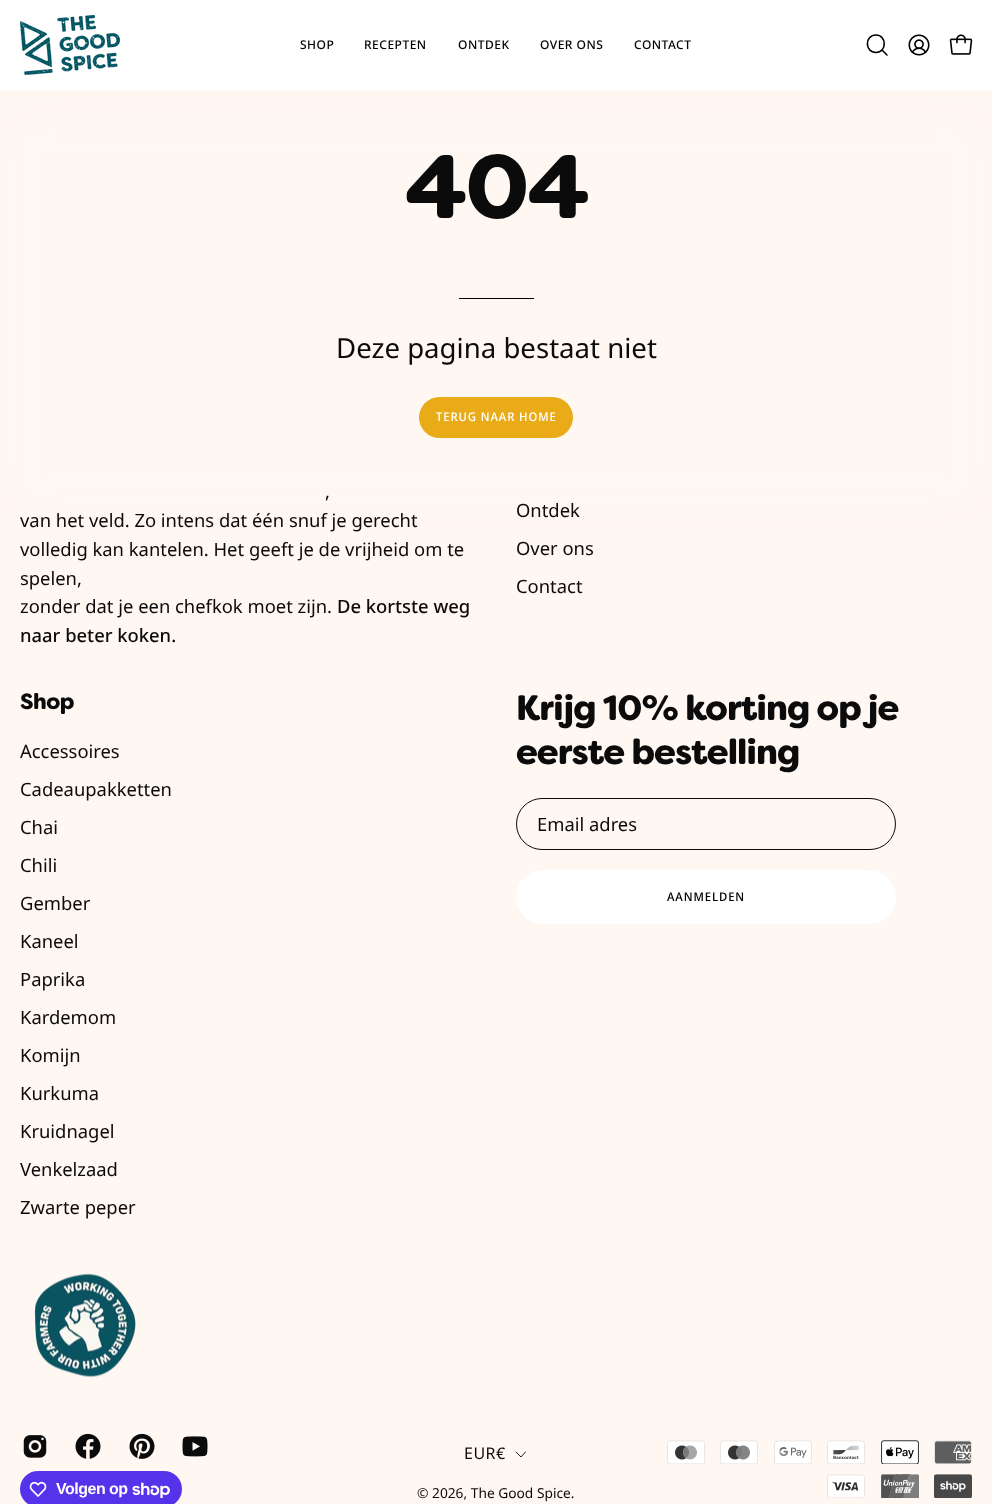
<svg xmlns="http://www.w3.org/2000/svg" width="992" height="1504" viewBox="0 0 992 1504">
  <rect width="100%" height="100%" fill="#fff7f2"/>
  <rect x="10" y="125" width="972" height="378" rx="24" fill="#fff7f2" filter="blur(12.5px)"/>
  <path d="M0 0h992v90H0z" fill="#fff"/>
  <image x="20" y="15" width="100" height="60" href="img/1.png"/>
  <path d="M876 52.5C887 52.5 887 35 876 35C864.5 35 864.5 52.5 876 52.5ZM882 50L887 55" fill="none" stroke="#000" stroke-width="1.6" stroke-linecap="round" stroke-linejoin="round"/>
  <image x="908" y="34" width="22" height="22" href="img/2.png"/>
  <image x="949" y="34" width="24" height="21" href="img/3.png"/>
  <path d="M459 298h75v1H459z" fill="#000"/>
  <rect x="419" y="397" width="154" height="41" rx="20.5" fill="#e9ac18"/>
  <rect x="516.5" y="798.5" width="379" height="51" rx="25.5" fill="none" stroke="#0b0b0b"/>
  <rect x="516" y="870" width="380" height="54" rx="27" fill="#fff"/>
  <image x="34" y="1273" width="102" height="104" href="img/4.png"/>
  <image x="23" y="1435" width="24" height="23" href="img/5.png"/>
  <image x="75" y="1433" width="26" height="26" href="img/6.png"/>
  <image x="129" y="1433" width="26" height="26" href="img/7.png"/>
  <image x="182" y="1436" width="26" height="21" href="img/8.png"/>
  <rect x="20" y="1471" width="162" height="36" rx="18" fill="#5433eb"/>
  <image x="29" y="1481" width="18" height="16" href="img/9.png"/>
  <image x="132" y="1482" width="38" height="16" href="img/10.png"/>
  <path d="M525.5 1452L521 1457L516 1452" fill="none" stroke="#0b0b0b" stroke-width="0.9" stroke-linecap="round" stroke-linejoin="round"/>
  <image x="667" y="1440" width="38" height="24" href="img/11.png"/>
  <image x="720" y="1440" width="38" height="24" href="img/12.png"/>
  <image x="774" y="1440" width="38" height="24" href="img/13.png"/>
  <image x="827" y="1440" width="38" height="24" href="img/14.png"/>
  <image x="881" y="1440" width="38" height="24" href="img/15.png"/>
  <image x="934" y="1440" width="38" height="24" href="img/16.png"/>
  <image x="827" y="1474" width="38" height="24" href="img/17.png"/>
  <image x="881" y="1474" width="38" height="24" href="img/18.png"/>
  <image x="934" y="1474" width="38" height="24" href="img/19.png"/>
  <g font-family="Noto Sans" font-size="12" font-weight="500" letter-spacing="0.5" fill="#000">
    <text x="300" y="49">SHOP</text>
    <text x="364" y="49">RECEPTEN</text>
    <text x="458" y="49">ONTDEK</text>
    <text x="540" y="49">OVER ONS</text>
    <text x="634" y="49">CONTACT</text>
  </g>
  <text x="405" y="218" font-family="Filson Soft" font-size="90" font-weight="900" letter-spacing="-2" fill="#0b0b0b">404</text>
  <text x="336" y="358" font-family="Noto Sans" font-size="27.6" fill="#0b0b0b">Deze pagina bestaat niet</text>
  <text x="436" y="421" font-family="Noto Sans Display" font-size="12" font-weight="500" letter-spacing="0.9" fill="#fff">TERUG NAAR HOME</text>
  <g font-family="Noto Sans" font-size="18.4" fill="#0b0b0b">
    <text x="325" y="498">,</text>
    <text x="20" y="527">van het veld. Zo intens dat één snuf je gerecht</text>
    <text x="20" y="556">volledig kan kantelen. Het geeft je de vrijheid om te</text>
    <text x="20" y="585">spelen,</text>
    <text x="20" y="613">zonder dat je een chefkok moet zijn.</text>
  </g>
  <g font-family="Noto Sans" font-size="18.4" font-weight="500" fill="#0b0b0b">
    <text x="337" y="613">De kortste weg</text>
    <text x="20" y="642">naar beter koken.</text>
  </g>
  <g font-family="Noto Sans" font-size="18.4" fill="#0b0b0b">
    <text x="516" y="517">Ontdek</text>
    <text x="516" y="555">Over ons</text>
    <text x="516" y="593">Contact</text>
  </g>
  <text x="20" y="709" font-family="Filson Soft" font-size="22" font-weight="900" letter-spacing="-0.5" fill="#0b0b0b">Shop</text>
  <g font-family="Noto Sans" font-size="18.4" fill="#0b0b0b">
    <text x="20" y="758">Accessoires</text>
    <text x="20" y="796">Cadeaupakketten</text>
    <text x="20" y="834">Chai</text>
    <text x="20" y="872">Chili</text>
    <text x="20" y="910">Gember</text>
    <text x="20" y="948">Kaneel</text>
    <text x="20" y="986">Paprika</text>
    <text x="20" y="1024">Kardemom</text>
    <text x="20" y="1062">Komijn</text>
    <text x="20" y="1100">Kurkuma</text>
    <text x="20" y="1138">Kruidnagel</text>
    <text x="20" y="1176">Venkelzaad</text>
    <text x="20" y="1214">Zwarte peper</text>
  </g>
  <g font-family="Filson Soft" font-size="35.25" font-weight="900" letter-spacing="-0.9" fill="#0b0b0b">
    <text x="516" y="720">Krijg 10% korting op je</text>
    <text x="516" y="764">eerste bestelling</text>
  </g>
  <text x="537" y="831" font-family="Noto Sans" font-size="18.4" fill="#0b0b0b">Email adres</text>
  <text x="667" y="901" font-family="Noto Sans Display" font-size="12" font-weight="500" letter-spacing="0.9" fill="#000">AANMELDEN</text>
  <text x="56" y="1494" font-family="Liberation Sans" font-size="16" font-weight="bold" letter-spacing="-0.5" fill="#fff">Volgen op</text>
  <text x="464" y="1459" font-family="Noto Sans" font-size="16" letter-spacing="0.5" fill="#0b0b0b">EUR€</text>
  <text x="417" y="1498" font-family="Noto Sans" font-size="13.75" fill="#0b0b0b">© 2026, The Good Spice.</text>
</svg>
